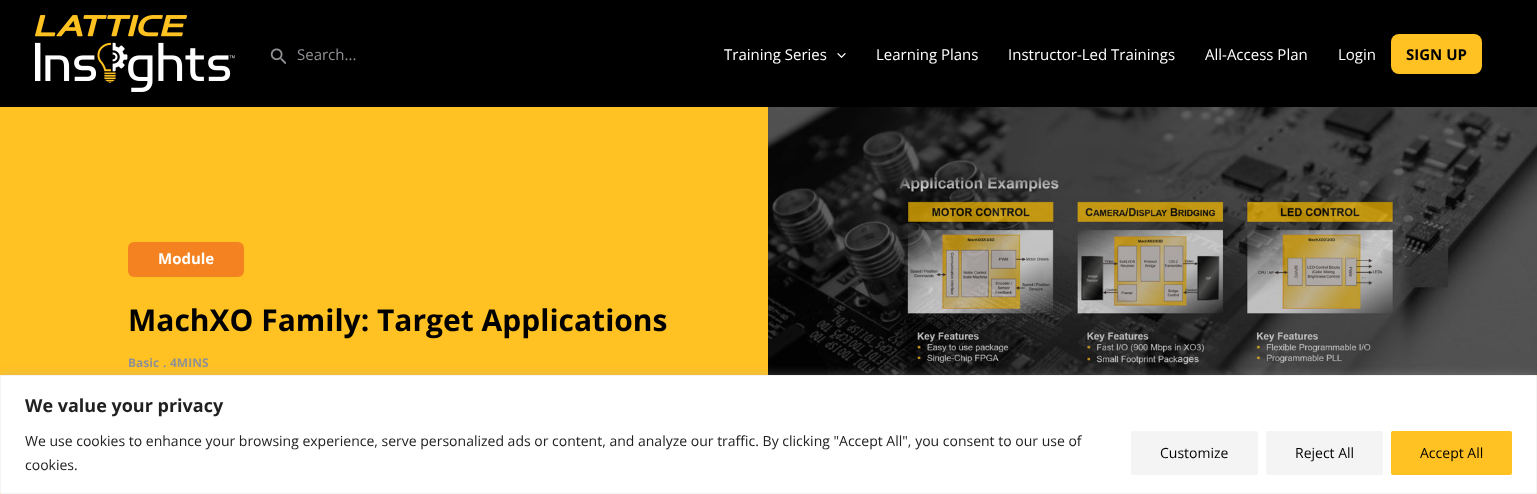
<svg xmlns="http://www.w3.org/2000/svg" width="1537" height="494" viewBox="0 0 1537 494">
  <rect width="100%" height="100%" fill="#ffc222"/>
  <path d="M0 0h1537v107H0z" fill="#000"/>
  <image x="35" y="15" width="200" height="77" href="img/1.png"/>
  <image x="270" y="48" width="16" height="17" href="img/2.png"/>
  <image x="837" y="53" width="9" height="5" href="img/3.png"/>
  <rect x="1391" y="34" width="91" height="40" rx="8" fill="#ffc222"/>
  <rect x="128" y="242" width="116" height="35" rx="6" fill="#f58220"/>
  <image x="768" y="107" width="769" height="268" href="img/4.png"/>
  <path d="M0 374h1537v119H0z" fill="#acabab4d" filter="blur(5px)"/>
  <path d="M0.5 375.5h1536v118H0.5z" fill="#fff" stroke="#f4f4f4"/>
  <rect x="1131" y="431" width="127" height="44" rx="2" fill="#f4f4f4"/>
  <rect x="1266" y="431" width="117" height="44" rx="2" fill="#f4f4f4"/>
  <rect x="1392" y="432" width="119" height="42" rx="1" fill="#ffc222" stroke="#ffc222" stroke-width="2"/>
  <text x="297" y="60" font-family="Open Sans" font-size="15" fill="#919195">Search...</text>
  <g font-family="Open Sans" font-size="15" fill="#fff">
    <text x="724" y="60">Training Series</text>
    <text x="876" y="60">Learning Plans</text>
    <text x="1008" y="60">Instructor-Led Trainings</text>
    <text x="1205" y="60">All-Access Plan</text>
    <text x="1338" y="60">Login</text>
  </g>
  <text x="1406" y="60" font-family="Open Sans" font-size="15" font-weight="bold" fill="#000">SIGN UP</text>
  <text x="158" y="264" font-family="Open Sans" font-size="15" font-weight="bold" fill="#fff">Module</text>
  <text x="128" y="331" font-family="Open Sans" font-size="30" font-weight="bold" fill="#000">MachXO Family: Target Applications</text>
  <g font-family="Open Sans" font-size="12" font-weight="bold" fill="#919195">
    <text x="128" y="367">Basic</text>
    <text x="163" y="367">.</text>
    <text x="170" y="367">4MINS</text>
  </g>
  <text x="25" y="412" font-family="Open Sans" font-size="18" font-weight="bold" fill="#212121">We value your privacy</text>
  <g font-family="Open Sans" font-size="14" fill="#212121">
    <text x="25" y="446">We use cookies to enhance your browsing experience, serve personalized ads or content, and analyze our traffic. By clicking "Accept All", you consent to our use of</text>
    <text x="25" y="470">cookies.</text>
  </g>
  <g font-family="Open Sans" font-size="14" fill="#000">
    <text x="1160" y="458">Customize</text>
    <text x="1295" y="458">Reject All</text>
    <text x="1420" y="458">Accept All</text>
  </g>
</svg>
